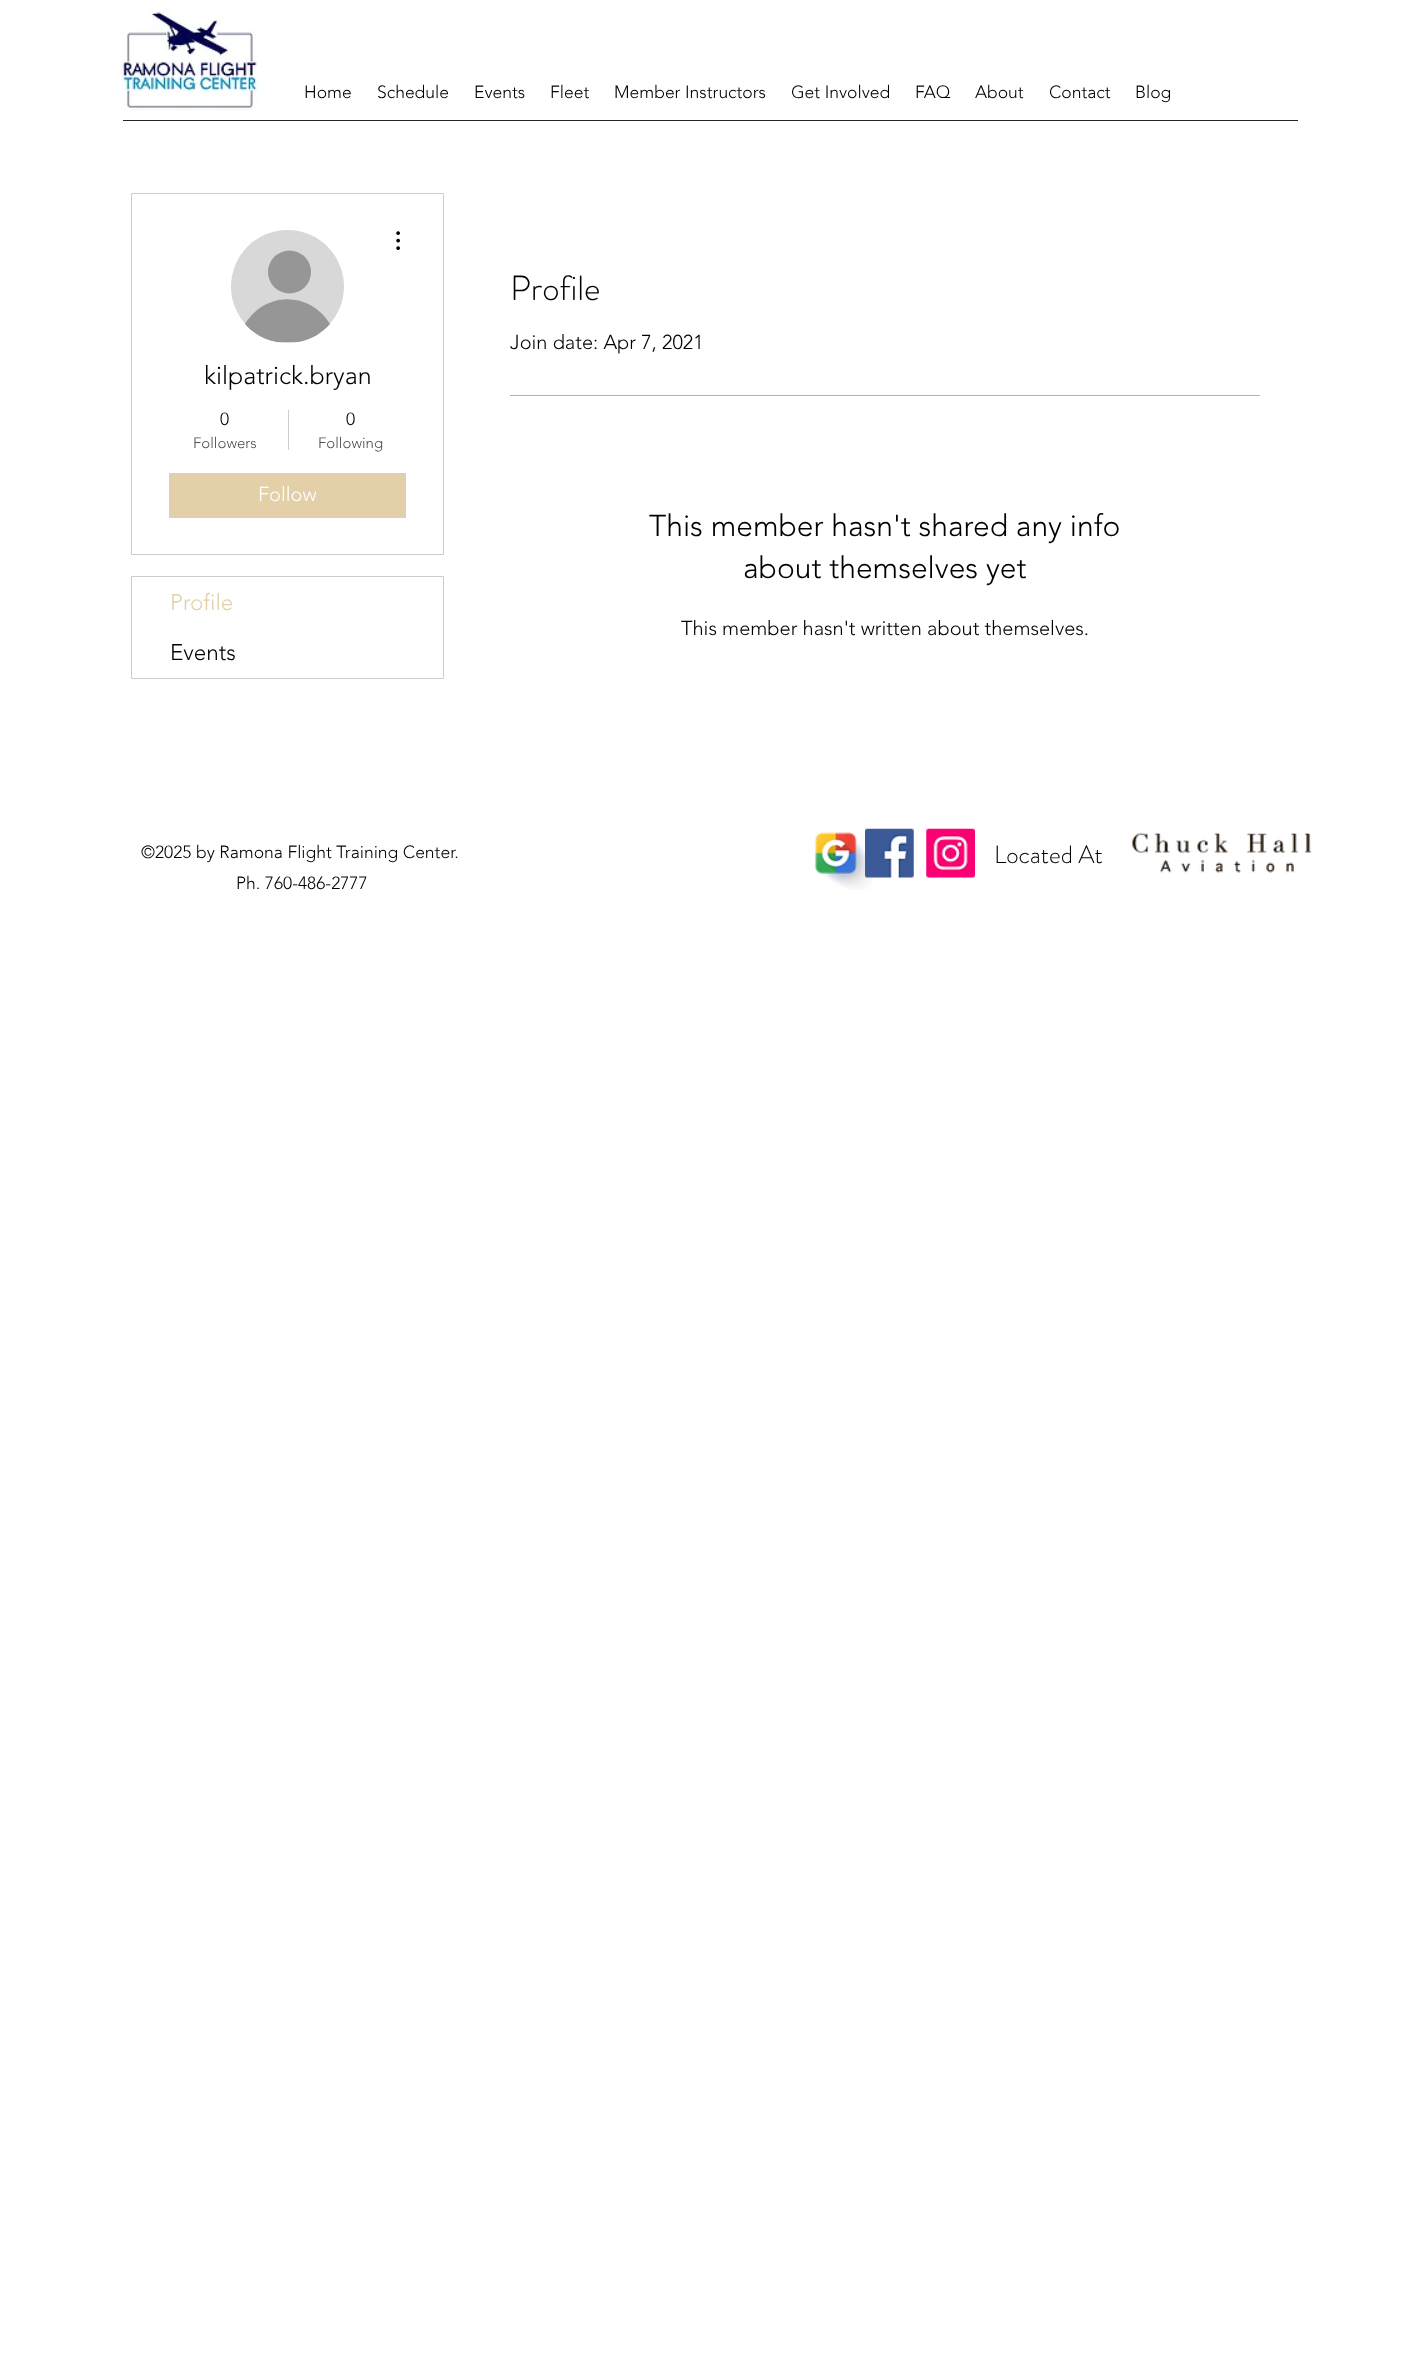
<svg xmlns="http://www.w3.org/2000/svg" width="1420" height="2371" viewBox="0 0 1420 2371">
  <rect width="100%" height="100%" fill="#fff"/>
  <image x="121" y="10" width="138" height="101" href="img/1.png"/>
  <path d="M123 120h1175v1H123z" fill="#262626"/>
  <path d="M131.5 193.5h312v361H131.5z" fill="none" stroke="#ccc"/>
  <circle cx="287.5" cy="286.5" r="56.5" fill="#d8d8d8"/>
  <circle cx="289.5" cy="272" r="21.5" fill="#969696"/>
  <path d="M277 342C264 340 253 333 245 324C265 291 310 291 330 324C322 333 311 340 298 342Z" fill="#969696"/>
  <image x="396" y="231" width="4" height="19" href="img/2.png"/>
  <path d="M288 410h1v40H288z" fill="#ccc"/>
  <path d="M169 473h237v45H169z" fill="#e3d0a8"/>
  <path d="M131.5 576.5h312v102H131.5z" fill="none" stroke="#ccc"/>
  <path d="M510 395h750v1H510z" fill="#b3b3b3"/>
  <image x="814" y="832" width="58" height="58" href="img/3.png"/>
  <image x="865" y="828" width="49" height="50" href="img/4.png"/>
  <image x="926" y="828" width="49" height="50" href="img/5.png"/>
  <image x="1131" y="832" width="181" height="41" href="img/6.png"/>
  <g font-family="'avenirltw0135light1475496'" font-size="17.5" font-weight="300" fill="#000">
    <text x="304" y="98">Home</text>
    <text x="377" y="98">Schedule</text>
    <text x="474" y="98">Events</text>
    <text x="550" y="98">Fleet</text>
    <text x="614" y="98">Member Instructors</text>
    <text x="791" y="98">Get Involved</text>
    <text x="915" y="98">FAQ</text>
    <text x="975" y="98">About</text>
    <text x="1049" y="98">Contact</text>
    <text x="1135" y="98">Blog</text>
  </g>
  <text x="204" y="384" font-family="'avenirltw0135light1475496'" font-size="25" font-weight="300" fill="#000">kilpatrick.bryan</text>
  <text x="220" y="425" font-family="'avenirltw0135light1475496'" font-size="17.5" font-weight="300" fill="#000">0</text>
  <text x="193" y="448" font-family="'avenirltw0135light1475496'" font-size="15" font-weight="300" fill="#4d4d4d">Followers</text>
  <text x="346" y="425" font-family="'avenirltw0135light1475496'" font-size="17.5" font-weight="300" fill="#000">0</text>
  <text x="318" y="448" font-family="'avenirltw0135light1475496'" font-size="15" font-weight="300" fill="#4d4d4d">Following</text>
  <text x="258" y="501" font-family="'avenirltw0135light1475496'" font-size="20" font-weight="300" fill="#fff">Follow</text>
  <text x="170" y="610" font-family="'avenirltw0135light1475496'" font-size="22.5" font-weight="300" fill="#e3d0a8">Profile</text>
  <text x="170" y="660" font-family="'avenirltw0135light1475496'" font-size="22.5" font-weight="300" fill="#000">Events</text>
  <text x="510" y="300" font-family="'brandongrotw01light'" font-size="35" font-weight="300" fill="#000">Profile</text>
  <text x="510" y="349" font-family="'avenirltw0135light1475496'" font-size="20" font-weight="300" fill="#000">Join date: Apr 7, 2021</text>
  <g font-family="'avenirltw0135light1475496'" font-size="30" font-weight="300" fill="#000">
    <text x="649" y="536">This member hasn't shared any info</text>
    <text x="743" y="578">about themselves yet</text>
  </g>
  <text x="681" y="635" font-family="'avenirltw0135light1475496'" font-size="20" font-weight="300" fill="#000">This member hasn't written about themselves.</text>
  <g font-family="'avenirltw0135light1475496'" font-size="17.5" font-weight="300" fill="#000">
    <text x="141" y="858">©2025 by Ramona Flight Training Center.</text>
    <text x="236" y="889">Ph. 760-486-2777</text>
  </g>
  <text x="994" y="863" font-family="'brandongrotw01light'" font-size="25" font-weight="300" fill="#000">Located At</text>
</svg>
